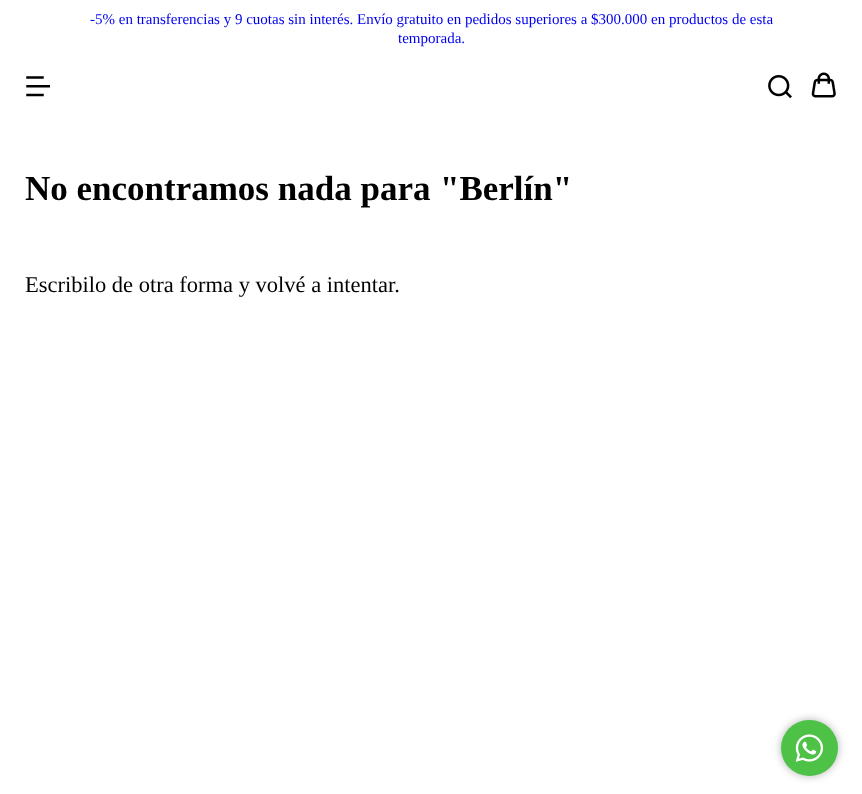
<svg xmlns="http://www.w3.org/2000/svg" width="862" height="794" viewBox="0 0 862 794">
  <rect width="100%" height="100%" fill="#fff"/>
  <image x="26" y="76" width="24" height="21" href="img/1.png"/>
  <image x="768" y="75" width="24" height="24" href="img/2.png"/>
  <image x="811" y="72" width="25" height="26" href="img/3.png"/>
  <rect x="781" y="720" width="57" height="56" rx="28" fill="#0000004d" filter="blur(4px)"/>
  <rect x="781" y="720" width="57" height="56" rx="28" fill="#4dc247"/>
  <image x="795" y="734" width="28" height="28" href="img/4.png"/>
  <g font-family="Liberation Serif" font-size="15" fill="#00e">
    <text x="90" y="24">-5% en transferencias y 9 cuotas sin interés. Envío gratuito en pedidos superiores a $300.000 en productos de esta</text>
    <text x="398" y="43">temporada.</text>
  </g>
  <g font-family="Liberation Serif" font-size="35" font-weight="bold" fill="#000">
    <text x="25" y="200">No encontramos nada para</text>
    <text x="440" y="200">"Berlín"</text>
  </g>
  <text x="25" y="292" font-family="Liberation Serif" font-size="22.5" fill="#000">Escribilo de otra forma y volvé a intentar.</text>
</svg>
